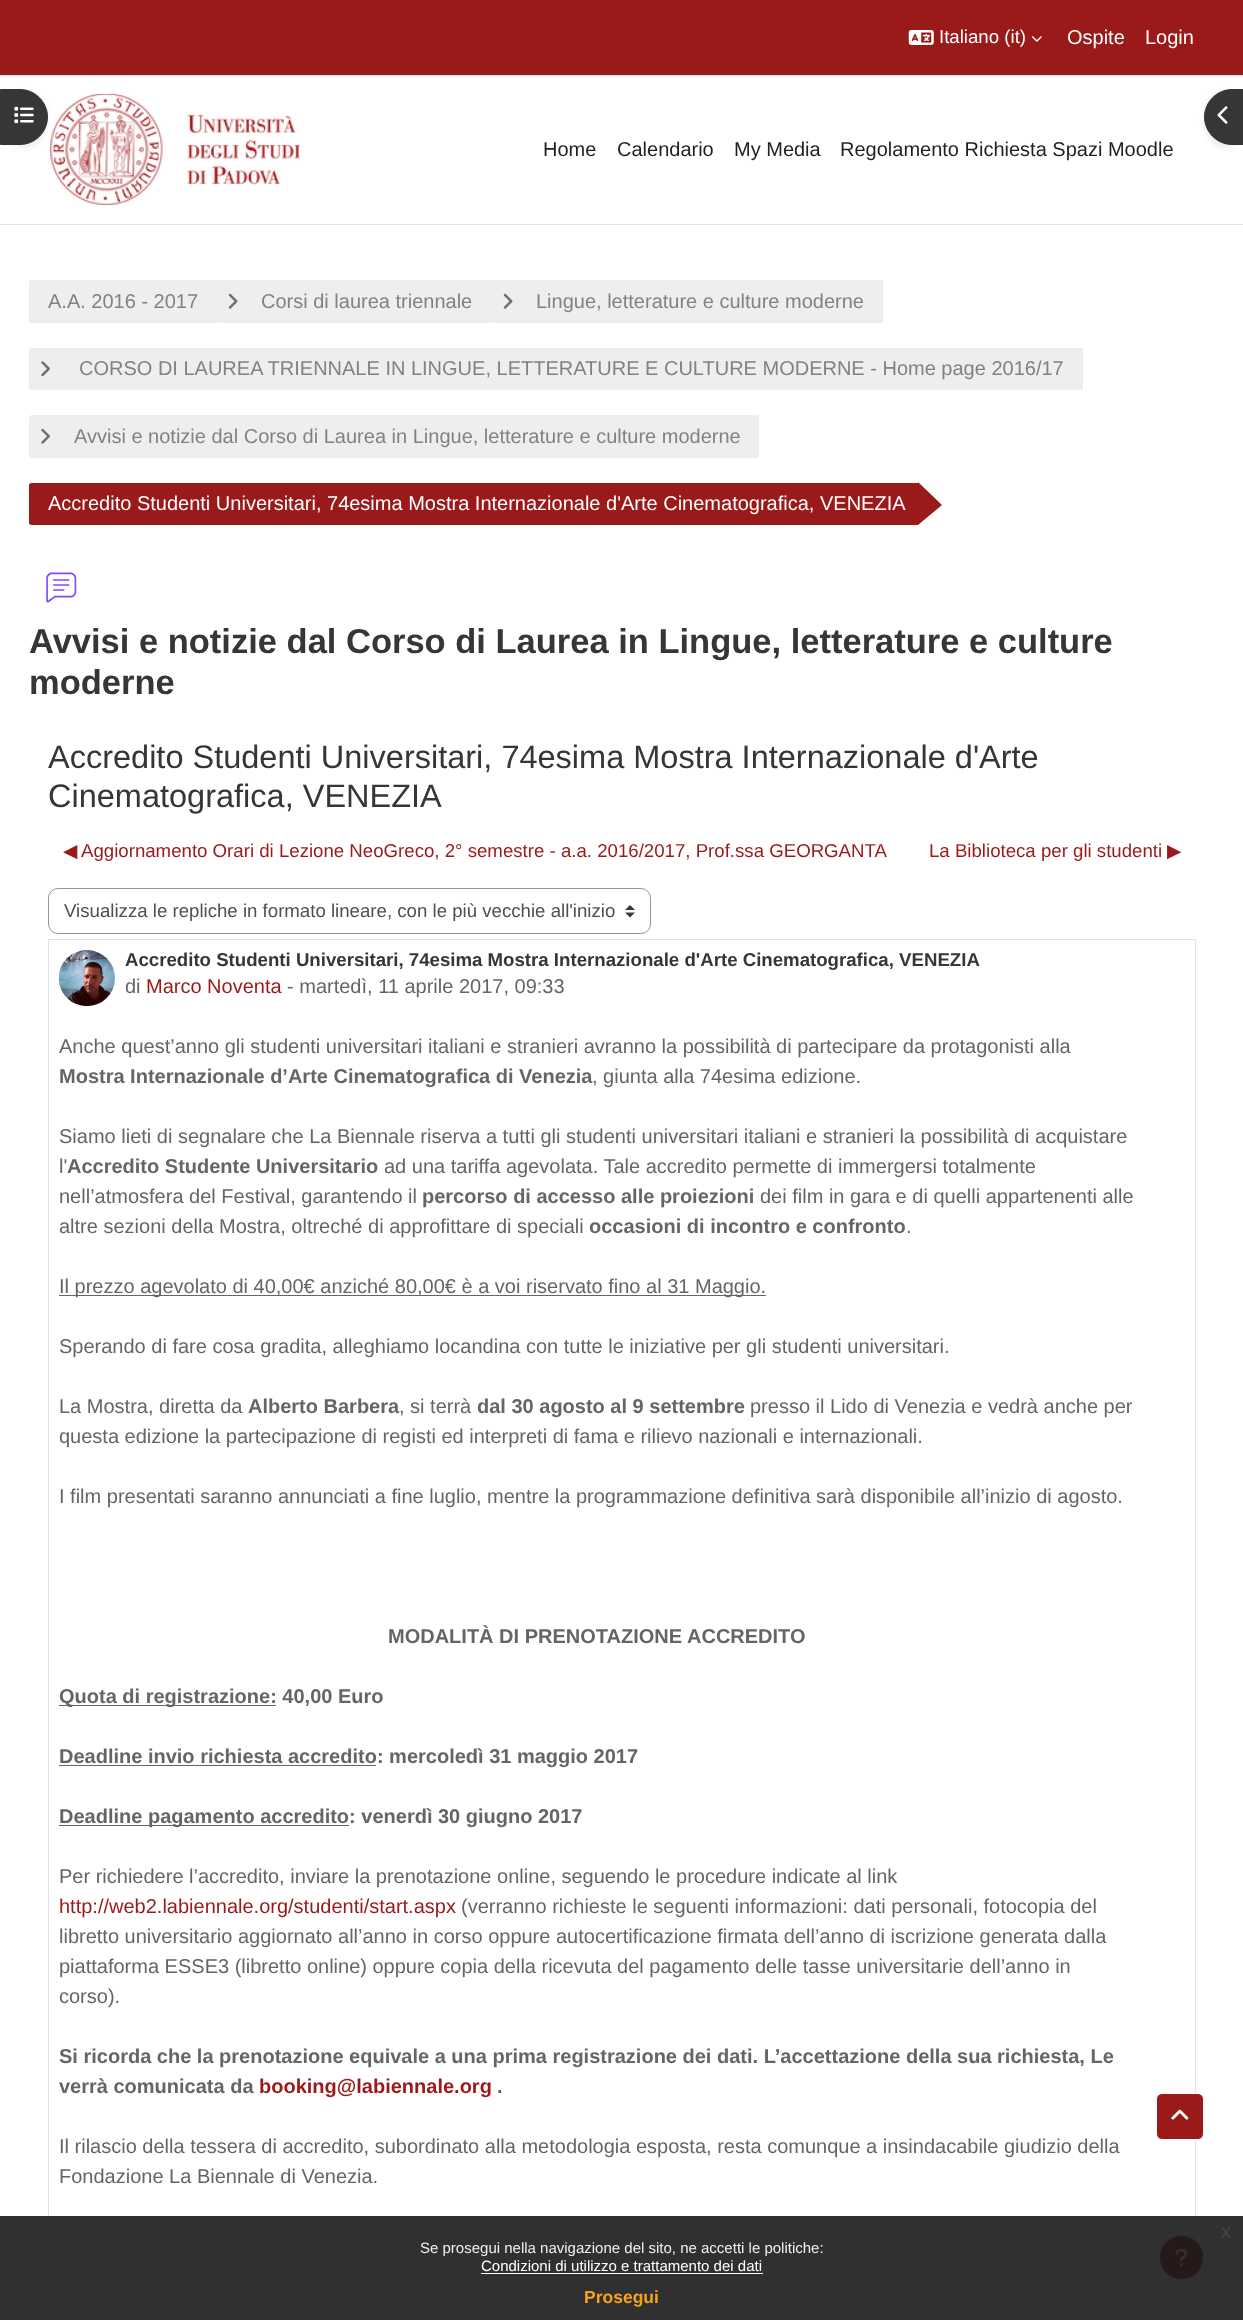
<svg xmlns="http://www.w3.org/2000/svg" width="1243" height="2320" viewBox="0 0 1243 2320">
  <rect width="100%" height="100%" fill="#fff"/>
  <path d="M0 0h1243v75H0z" fill="#9a1919"/>
  <path d="M0 75h1243v1H0z" fill="#e8e3e3"/>
  <image x="908" y="30" width="26" height="15" href="img/1.png"/>
  <image x="1032" y="36" width="10" height="6" href="img/2.png"/>
  <path d="M0 224h1243v1H0z" fill="#e8e3e3"/>
  <image x="50" y="93" width="250" height="112" href="img/3.png"/>
  <rect y="91" width="48" height="57" rx="28" fill="#00000012" filter="blur(2.5px)"/>
  <path d="M.5 89.5H20C35 89.5 47.5 102 47.5 117C47.5 132 35 144.5 20 144.5H.5Z" fill="#363636" stroke="#363636"/>
  <image x="14" y="106" width="20" height="18" href="img/4.png"/>
  <rect x="1204" y="91" width="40" height="57" rx="28" fill="#00000012" filter="blur(2.5px)"/>
  <path d="M1232 89.5H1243.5V144.5H1232C1217 144.5 1204.5 132 1204.5 117C1204.5 102 1217 89.5 1232 89.5Z" fill="#363636" stroke="#363636"/>
  <image x="1217" y="106" width="11" height="18" href="img/5.png"/>
  <path d="M31.5 280H216V323H31.5C30 323 29 322 29 320.5V282.5C29 281 30 280 31.5 280Z" fill="#eee"/>
  <path d="M218.5 280H491V323H218.5C217 323 216 322 216 320.5V282.5C216 281 217 280 218.5 280Z" fill="#eee"/>
  <image x="228" y="293" width="10" height="16" href="img/6.png"/>
  <path d="M493.5 280H883V323H493.5C492 323 491 322 491 320.5V282.5C491 281 492 280 493.5 280Z" fill="#eee"/>
  <image x="503" y="293" width="10" height="16" href="img/6.png"/>
  <path d="M31.5 348H1083V390H31.5C30 390 29 389 29 387.5V350.5C29 349 30 348 31.5 348Z" fill="#eee"/>
  <image x="41" y="361" width="9" height="16" href="img/7.png"/>
  <path d="M31.5 415H759V458H31.5C30 458 29 457 29 455.5V417.5C29 416 30 415 31.5 415Z" fill="#eee"/>
  <image x="41" y="428" width="9" height="16" href="img/8.png"/>
  <path d="M31.5 483H918V525H31.5C30 525 29 524 29 522.5V485.5C29 484 30 483 31.5 483Z" fill="#9a1919"/>
  <path d="M918 525V482L942 505Z" fill="#9a1919"/>
  <image x="46" y="572" width="31" height="31" href="img/9.png"/>
  <image x="625" y="905" width="10" height="13" href="img/10.png"/>
  <rect x="48.5" y="888.5" width="602" height="45" rx="9.5" fill="none" stroke="#8f959e"/>
  <path d="M48.5 939.5h1147v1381H48.5z" fill="none" stroke="#dee2e6"/>
  <image x="58" y="950" width="57" height="57" href="img/11.png"/>
  <path d="M59 1295h707v1H59z" fill="#656565"/>
  <path d="M59 1705h217v1H59z" fill="#656565"/>
  <path d="M59 1765h317v1H59z" fill="#656565"/>
  <path d="M59 1825h290v1H59z" fill="#656565"/>
  <rect x="1156.5" y="2093.5" width="47" height="46" rx="5.5" fill="#9a1919" stroke="#fff"/>
  <image x="1171" y="2109" width="18" height="11" href="img/12.png"/>
  <circle cx="1181.5" cy="2257.5" r="22" fill="#9a1919" stroke="#eee"/>
  <image x="1175" y="2248" width="12" height="19" href="img/13.png"/>
  <path d="M0 2216h1243v104H0z" fill="#191919e6"/>
  <path d="M481 2273h282v1H481z" fill="#fff"/>
  <text x="939" y="43" font-family="Liberation Sans" font-size="18.65" fill="#fff">Italiano (it)</text>
  <g font-family="Liberation Sans" font-size="20" fill="#fff">
    <text x="1067" y="44">Ospite</text>
    <text x="1145" y="44">Login</text>
  </g>
  <g font-family="Liberation Sans" font-size="20" fill="#1d2125">
    <text x="543" y="156">Home</text>
    <text x="617" y="156">Calendario</text>
    <text x="734" y="156">My Media</text>
    <text x="840" y="156">Regolamento Richiesta Spazi Moodle</text>
  </g>
  <g font-family="Liberation Sans" font-size="20" fill="#828282">
    <text x="48" y="308">A.A. 2016 - 2017</text>
    <text x="261" y="308">Corsi di laurea triennale</text>
    <text x="536" y="308">Lingue, letterature e culture moderne</text>
    <text x="79" y="375">CORSO DI LAUREA TRIENNALE IN LINGUE, LETTERATURE E CULTURE MODERNE - Home page 2016/17</text>
    <text x="74" y="443">Avvisi e notizie dal Corso di Laurea in Lingue, letterature e culture moderne</text>
  </g>
  <text x="48" y="510" font-family="Liberation Sans" font-size="20" fill="#fff">Accredito Studenti Universitari, 74esima Mostra Internazionale d'Arte Cinematografica, VENEZIA</text>
  <g font-family="Liberation Sans" font-size="34.5" font-weight="bold" fill="#363636">
    <text x="29" y="653">Avvisi e notizie dal Corso di Laurea in Lingue, letterature e culture</text>
    <text x="29" y="694">moderne</text>
  </g>
  <g font-family="Liberation Sans" font-size="32.5" fill="#363636">
    <text x="48" y="768">Accredito Studenti Universitari, 74esima Mostra Internazionale d'Arte</text>
    <text x="48" y="807">Cinematografica, VENEZIA</text>
  </g>
  <text x="63" y="857" font-family="DejaVu Sans" font-size="18.65" fill="#9a1919">◀︎</text>
  <g font-family="Liberation Sans" font-size="18.65" fill="#9a1919">
    <text x="81" y="857">Aggiornamento Orari di Lezione NeoGreco, 2° semestre - a.a. 2016/2017, Prof.ssa GEORGANTA</text>
    <text x="929" y="857">La Biblioteca per gli studenti</text>
  </g>
  <text x="1167" y="857" font-family="DejaVu Sans" font-size="18.65" fill="#9a1919">▶︎</text>
  <text x="64" y="917" font-family="Liberation Sans" font-size="18.65" fill="#495057">Visualizza le repliche in formato lineare, con le più vecchie all'inizio</text>
  <text x="125" y="966" font-family="Liberation Sans" font-size="18.65" font-weight="bold" fill="#363636">Accredito Studenti Universitari, 74esima Mostra Internazionale d'Arte Cinematografica, VENEZIA</text>
  <text x="125" y="993" font-family="Liberation Sans" font-size="20" fill="#656565">di</text>
  <text x="146" y="993" font-family="Liberation Sans" font-size="20" fill="#9a1919">Marco Noventa</text>
  <g font-family="Liberation Sans" font-size="20" fill="#656565">
    <text x="287" y="993">- martedì, 11 aprile 2017, 09:33</text>
    <text x="59" y="1053">Anche quest’anno gli studenti universitari italiani e stranieri avranno la possibilità di partecipare da protagonisti alla</text>
  </g>
  <text x="59" y="1083" font-family="Liberation Sans" font-size="20" font-weight="bold" fill="#656565">Mostra Internazionale d’Arte Cinematografica di Venezia</text>
  <g font-family="Liberation Sans" font-size="20" fill="#656565">
    <text x="592" y="1083">, giunta alla 74esima edizione.</text>
    <text x="59" y="1143">Siamo lieti di segnalare che La Biennale riserva a tutti gli studenti universitari italiani e stranieri la possibilità di acquistare</text>
    <text x="59" y="1173">l'</text>
  </g>
  <text x="67" y="1173" font-family="Liberation Sans" font-size="20" font-weight="bold" fill="#656565">Accredito Studente Universitario</text>
  <g font-family="Liberation Sans" font-size="20" fill="#656565">
    <text x="384" y="1173">ad una tariffa agevolata. Tale accredito permette di immergersi totalmente</text>
    <text x="59" y="1203">nell’atmosfera del Festival, garantendo il</text>
  </g>
  <text x="422" y="1203" font-family="Liberation Sans" font-size="20" font-weight="bold" fill="#656565">percorso di accesso alle proiezioni</text>
  <g font-family="Liberation Sans" font-size="20" fill="#656565">
    <text x="760" y="1203">dei film in gara e di quelli appartenenti alle</text>
    <text x="59" y="1233">altre sezioni della Mostra, oltreché di approfittare di speciali</text>
  </g>
  <text x="589" y="1233" font-family="Liberation Sans" font-size="20" font-weight="bold" fill="#656565">occasioni di incontro e confronto</text>
  <g font-family="Liberation Sans" font-size="20" fill="#656565">
    <text x="906" y="1233">.</text>
    <text x="59" y="1293">Il prezzo agevolato di 40,00€ anziché 80,00€ è a voi riservato fino al 31 Maggio.</text>
    <text x="59" y="1353">Sperando di fare cosa gradita, alleghiamo locandina con tutte le iniziative per gli studenti universitari.</text>
    <text x="59" y="1413">La Mostra, diretta da</text>
  </g>
  <text x="248" y="1413" font-family="Liberation Sans" font-size="20" font-weight="bold" fill="#656565">Alberto Barbera</text>
  <text x="399" y="1413" font-family="Liberation Sans" font-size="20" fill="#656565">, si terrà</text>
  <text x="477" y="1413" font-family="Liberation Sans" font-size="20" font-weight="bold" fill="#656565">dal 30 agosto al 9 settembre</text>
  <g font-family="Liberation Sans" font-size="20" fill="#656565">
    <text x="750" y="1413">presso il Lido di Venezia e vedrà anche per</text>
    <text x="59" y="1443">questa edizione la partecipazione di registi ed interpreti di fama e rilievo nazionali e internazionali.</text>
    <text x="59" y="1503">I film presentati saranno annunciati a fine luglio, mentre la programmazione definitiva sarà disponibile all’inizio di agosto.</text>
  </g>
  <g font-family="Liberation Sans" font-size="20" font-weight="bold" fill="#656565">
    <text x="388" y="1643">MODALITÀ DI PRENOTAZIONE</text>
    <text x="687" y="1643">ACCREDITO</text>
    <text x="59" y="1703">Quota di registrazione: 40,00 Euro</text>
    <text x="59" y="1763">Deadline invio richiesta accredito: mercoledì 31 maggio 2017</text>
    <text x="59" y="1823">Deadline pagamento accredito: venerdì 30 giugno 2017</text>
  </g>
  <text x="59" y="1883" font-family="Liberation Sans" font-size="20" fill="#656565">Per richiedere l’accredito, inviare la prenotazione online, seguendo le procedure indicate al link</text>
  <text x="59" y="1913" font-family="Liberation Sans" font-size="20" fill="#9a1919">http://web2.labiennale.org/studenti/start.aspx</text>
  <g font-family="Liberation Sans" font-size="20" fill="#656565">
    <text x="461" y="1913">(verranno richieste le seguenti informazioni: dati personali, fotocopia del</text>
    <text x="59" y="1943">libretto universitario aggiornato all’anno in corso oppure autocertificazione firmata dell’anno di iscrizione generata dalla</text>
    <text x="59" y="1973">piattaforma ESSE3 (libretto online) oppure copia della ricevuta del pagamento delle tasse universitarie dell’anno in</text>
    <text x="59" y="2003">corso).</text>
  </g>
  <g font-family="Liberation Sans" font-size="20" font-weight="bold" fill="#656565">
    <text x="59" y="2063">Si ricorda che la prenotazione equivale a una prima registrazione dei dati. L’accettazione della sua richiesta, Le</text>
    <text x="59" y="2093">verrà comunicata da</text>
  </g>
  <text x="259" y="2093" font-family="Liberation Sans" font-size="20" font-weight="bold" fill="#9a1919">booking@labiennale.org</text>
  <text x="497" y="2093" font-family="Liberation Sans" font-size="20" font-weight="bold" fill="#656565">.</text>
  <g font-family="Liberation Sans" font-size="20" fill="#656565">
    <text x="59" y="2153">Il rilascio della tessera di accredito, subordinato alla metodologia esposta, resta comunque a insindacabile giudizio della</text>
    <text x="59" y="2183">Fondazione La Biennale di Venezia.</text>
  </g>
  <text x="1221" y="2238" font-family="Liberation Sans" font-size="20" fill="#474747">x</text>
  <text x="420" y="2253" font-family="Liberation Sans" font-size="15" fill="#efefef">Se prosegui nella navigazione del sito, ne accetti le politiche:</text>
  <text x="481" y="2271" font-family="Liberation Sans" font-size="15" fill="#fff">Condizioni di utilizzo e trattamento dei dati</text>
  <text x="584" y="2303" font-family="Liberation Sans" font-size="17.5" font-weight="bold" fill="#f6a21d">Prosegui</text>
</svg>
